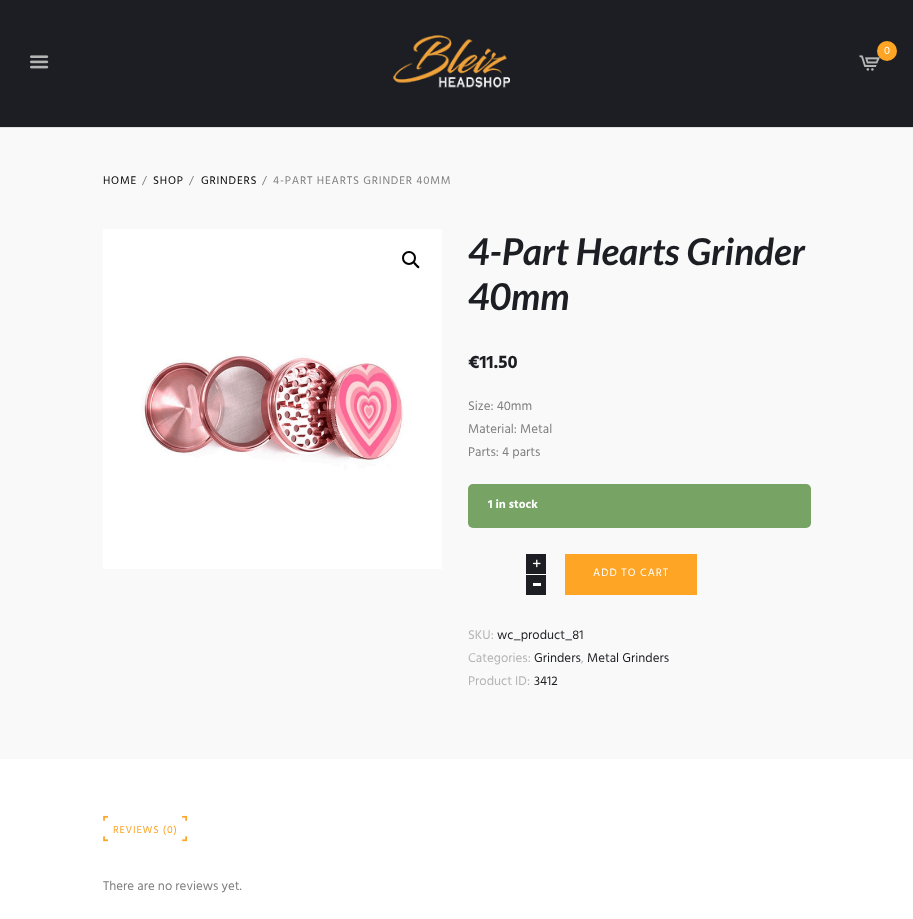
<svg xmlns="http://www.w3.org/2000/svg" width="913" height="919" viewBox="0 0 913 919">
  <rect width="100%" height="100%" fill="#f9f9f9"/>
  <path d="M0 0h913v127H0z" fill="#1d1e23"/>
  <image x="393" y="35" width="117" height="53" href="img/1.png"/>
  <image x="859" y="55" width="21" height="16" href="img/2.png"/>
  <circle cx="887" cy="51" r="10" fill="#fea526"/>
  <image x="30" y="55" width="19" height="14" href="img/3.png"/>
  <path d="M0 127h913v1H0z" fill="#e2e2e2"/>
  <image x="103" y="229" width="339" height="340" href="img/4.png"/>
  <circle cx="409" cy="258" r="6" fill="none" stroke="#000" stroke-width="2"/>
  <path d="M413.5 262.5C414.5 261 416.5 264 417 264.5C417.5 265 420.5 266.5 419 268C418 269 416 266.5 415.5 266C415 265 412.5 263.5 413.5 262.5Z" fill="#000"/>
  <rect x="468" y="484" width="343" height="44" rx="5" fill="#77a464"/>
  <path d="M526 554h20v20H526z" fill="#1d1e23"/>
  <image x="533" y="559" width="8" height="9" href="img/5.png"/>
  <path d="M526 575h20v20H526z" fill="#1d1e23"/>
  <path d="M526 574h20v1H526z" fill="#fff"/>
  <path d="M533 583h8v3H533z" fill="#fff"/>
  <path d="M565 554h132v41H565z" fill="#fea526"/>
  <path d="M0 759h913v160H0z" fill="#fff"/>
  <image x="103" y="815" width="5" height="27" href="img/6.png"/>
  <image x="182" y="815" width="5" height="27" href="img/7.png"/>
  <text x="884" y="54" font-family="Hind" font-size="11" fill="#fff">0</text>
  <text x="103" y="184" font-family="Hind" font-size="11.4" letter-spacing="0.8" fill="#000">HOME</text>
  <text x="142" y="184" font-family="Hind" font-size="11.4" letter-spacing="0.8" fill="#808080">/</text>
  <text x="153" y="184" font-family="Hind" font-size="11.4" letter-spacing="0.8" fill="#000">SHOP</text>
  <text x="189" y="184" font-family="Hind" font-size="11.4" letter-spacing="0.8" fill="#808080">/</text>
  <text x="201" y="184" font-family="Hind" font-size="11.4" letter-spacing="0.8" fill="#000">GRINDERS</text>
  <g font-family="Hind" font-size="11.4" letter-spacing="0.8" fill="#808080">
    <text x="262" y="184">/</text>
    <text x="273" y="184">4-PART HEARTS GRINDER 40MM</text>
  </g>
  <g font-family="Lato" font-size="37.1" font-weight="bold" font-style="italic" fill="#1d1e23">
    <text x="468" y="265">4-Part Hearts Grinder</text>
    <text x="468" y="310">40mm</text>
  </g>
  <text x="468" y="368" font-family="Hind" font-size="18.5" font-weight="bold" fill="#1d1e23">€11.50</text>
  <g font-family="Hind" font-size="13" fill="#808080">
    <text x="468" y="410">Size: 40mm</text>
    <text x="468" y="433">Material: Metal</text>
    <text x="468" y="456">Parts: 4 parts</text>
  </g>
  <text x="488" y="508" font-family="Hind" font-size="12" font-weight="bold" fill="#fff">1 in stock</text>
  <text x="593" y="576" font-family="Hind" font-size="11" letter-spacing="1" fill="#fff">ADD TO CART</text>
  <text x="468" y="639" font-family="Hind" font-size="13" fill="#b4b4b4">SKU:</text>
  <text x="497" y="639" font-family="Hind" font-size="13" fill="#1d1e23">wc_product_81</text>
  <text x="468" y="662" font-family="Hind" font-size="13" fill="#b4b4b4">Categories:</text>
  <text x="534" y="662" font-family="Hind" font-size="13" fill="#1d1e23">Grinders</text>
  <text x="581" y="662" font-family="Hind" font-size="13" fill="#b4b4b4">,</text>
  <text x="587" y="662" font-family="Hind" font-size="13" fill="#1d1e23">Metal Grinders</text>
  <text x="468" y="685" font-family="Hind" font-size="13" fill="#b4b4b4">Product ID:</text>
  <text x="534" y="685" font-family="Hind" font-size="13" fill="#1d1e23">3412</text>
  <text x="113" y="833" font-family="Hind" font-size="10.5" letter-spacing="0.8" fill="#fea526">REVIEWS (0)</text>
  <text x="103" y="890" font-family="Hind" font-size="13" fill="#808080">There are no reviews yet.</text>
</svg>
